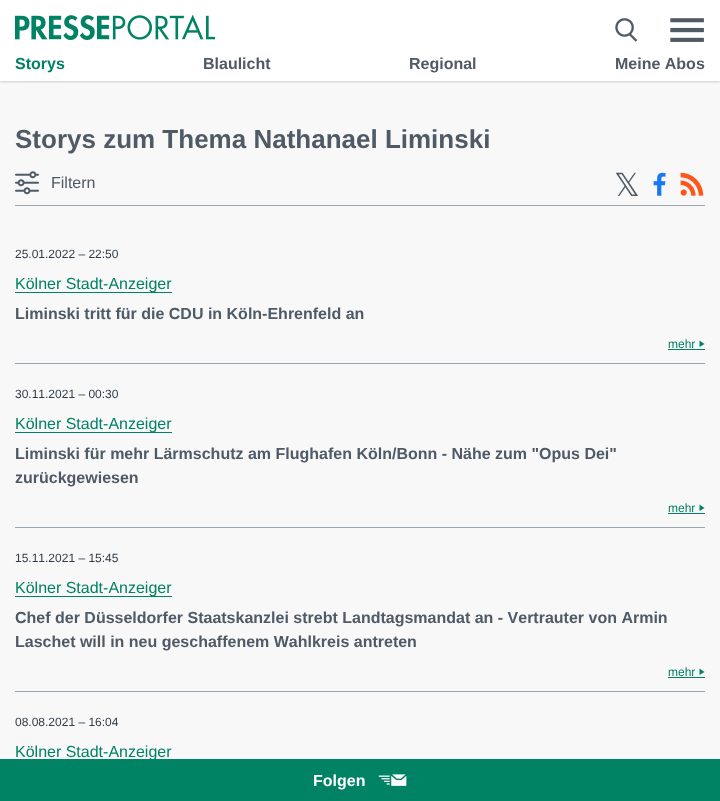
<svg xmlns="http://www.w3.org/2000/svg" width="720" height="801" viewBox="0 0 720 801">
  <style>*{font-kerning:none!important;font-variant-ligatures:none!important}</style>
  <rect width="100%" height="100%" fill="#f8f8f8"/>
  <path d="M0 1h720v81H0z" fill="#4f5a6629" filter="blur(1px)"/>
  <path d="M0 1h720v81H0z" fill="#4f5a661a" filter="blur(1px)"/>
  <path d="M0 0h720v81H0z" fill="#fff"/>
  <image x="15" y="14" width="200" height="26" href="img/1.png"/>
  <image x="615" y="18" width="23" height="24" href="img/2.png"/>
  <image x="670" y="18" width="34" height="24" href="img/3.png"/>
  <path d="M0 759h720v42H0z" fill="#008264"/>
  <image x="378" y="774" width="29" height="12" href="img/4.png"/>
  <path d="M15 205h690v1H15z" fill="#99a9b2"/>
  <image x="15" y="171" width="24" height="24" href="img/5.png"/>
  <image x="653" y="172" width="13" height="24" href="img/6.png"/>
  <image x="680" y="172" width="24" height="24" href="img/7.png"/>
  <path d="M15 292h157v1H15z" fill="#008264"/>
  <path d="M668 349h37v1H668z" fill="#008264"/>
  <path d="M699.5 347V340.5L704.5 344Z" fill="#008264"/>
  <path d="M15 363h690v1H15z" fill="#99a9b2"/>
  <path d="M15 432h157v1H15z" fill="#008264"/>
  <path d="M668 513h37v1H668z" fill="#008264"/>
  <path d="M699.5 511V504.5L704.5 508Z" fill="#008264"/>
  <path d="M15 527h690v1H15z" fill="#99a9b2"/>
  <path d="M15 596h157v1H15z" fill="#008264"/>
  <path d="M668 677h37v1H668z" fill="#008264"/>
  <path d="M699.5 675V668.5L704.5 672Z" fill="#008264"/>
  <path d="M15 691h690v1H15z" fill="#99a9b2"/>
  <text x="15" y="69" font-family="Liberation Sans" font-size="16" font-weight="bold" fill="#008264">Storys</text>
  <g font-family="Liberation Sans" font-size="16" font-weight="bold" fill="#4f5a66">
    <text x="203" y="69">Blaulicht</text>
    <text x="409" y="69">Regional</text>
    <text x="615" y="69">Meine Abos</text>
  </g>
  <text x="15" y="148" font-family="Liberation Sans" font-size="26" font-weight="bold" fill="#4f5a66">Storys zum Thema Nathanael Liminski</text>
  <text x="313" y="786" font-family="Liberation Sans" font-size="16" font-weight="bold" fill="#fff">Folgen</text>
  <text x="51" y="188" font-family="Liberation Sans" font-size="16" fill="#4f5a66">Filtern</text>
  <text x="614" y="196" font-family="DejaVu Sans" font-size="32" fill="#4f5a66">𝕏</text>
  <text x="15" y="258" font-family="Liberation Sans" font-size="12" fill="#303c49">25.01.2022 – 22:50</text>
  <text x="15" y="289" font-family="Liberation Sans" font-size="16" fill="#008264">Kölner Stadt-Anzeiger</text>
  <text x="15" y="319" font-family="Liberation Sans" font-size="16" font-weight="bold" fill="#4f5a66">Liminski tritt für die CDU in Köln-Ehrenfeld an</text>
  <text x="668" y="348" font-family="Liberation Sans" font-size="12" fill="#008264">mehr</text>
  <text x="15" y="398" font-family="Liberation Sans" font-size="12" fill="#303c49">30.11.2021 – 00:30</text>
  <text x="15" y="429" font-family="Liberation Sans" font-size="16" fill="#008264">Kölner Stadt-Anzeiger</text>
  <g font-family="Liberation Sans" font-size="16" font-weight="bold" fill="#4f5a66">
    <text x="15" y="459">Liminski für mehr Lärmschutz am Flughafen Köln/Bonn - Nähe zum "Opus Dei"</text>
    <text x="15" y="483">zurückgewiesen</text>
  </g>
  <text x="668" y="512" font-family="Liberation Sans" font-size="12" fill="#008264">mehr</text>
  <text x="15" y="562" font-family="Liberation Sans" font-size="12" fill="#303c49">15.11.2021 – 15:45</text>
  <text x="15" y="593" font-family="Liberation Sans" font-size="16" fill="#008264">Kölner Stadt-Anzeiger</text>
  <g font-family="Liberation Sans" font-size="16" font-weight="bold" fill="#4f5a66">
    <text x="15" y="623">Chef der Düsseldorfer Staatskanzlei strebt Landtagsmandat an - Vertrauter von Armin</text>
    <text x="15" y="647">Laschet will in neu geschaffenem Wahlkreis antreten</text>
  </g>
  <text x="668" y="676" font-family="Liberation Sans" font-size="12" fill="#008264">mehr</text>
  <text x="15" y="726" font-family="Liberation Sans" font-size="12" fill="#303c49">08.08.2021 – 16:04</text>
  <text x="15" y="757" font-family="Liberation Sans" font-size="16" fill="#008264">Kölner Stadt-Anzeiger</text>
</svg>
